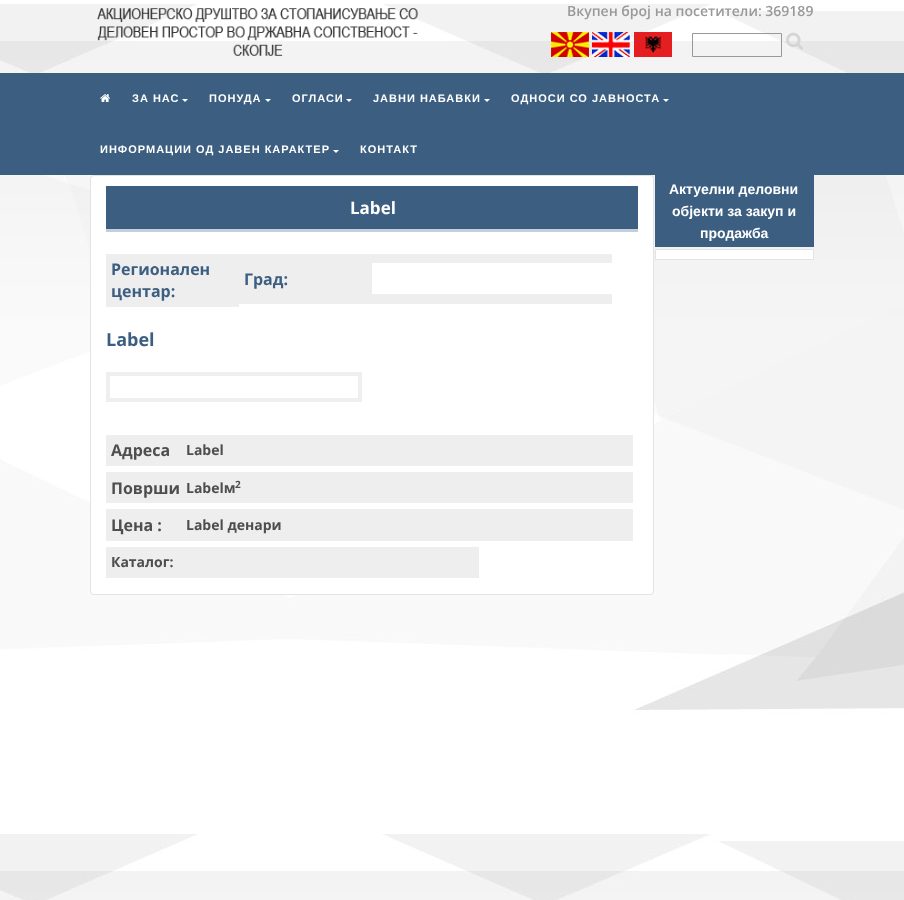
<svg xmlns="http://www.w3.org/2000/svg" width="904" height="900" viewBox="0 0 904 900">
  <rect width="100%" height="100%" fill="#fff"/>
  <image x="0" y="4" width="904" height="896" href="img/1.png"/>
  <image x="97" y="8" width="322" height="48" href="img/2.png"/>
  <image x="551" y="32" width="38" height="25" href="img/3.png"/>
  <image x="592" y="32" width="38" height="25" href="img/4.png"/>
  <image x="634" y="32" width="38" height="25" href="img/5.png"/>
  <path d="M692.5 33.5h89v23H692.5z" fill="none" stroke="#999"/>
  <image x="786" y="32" width="17" height="18" href="img/6.png"/>
  <path d="M0 73h904v102H0z" fill="#3b5e81"/>
  <image x="100" y="94" width="10" height="8" href="img/7.png"/>
  <path d="M182 99H188L185 102Z" fill="#fff"/>
  <path d="M265 99H271L268 102Z" fill="#fff"/>
  <path d="M346 99H352L349 102Z" fill="#fff"/>
  <path d="M484 99H490L487 102Z" fill="#fff"/>
  <path d="M663 99H669L666 102Z" fill="#fff"/>
  <path d="M333 150H339L336 153Z" fill="#fff"/>
  <rect x="90.5" y="175.5" width="563" height="419" rx="3.5" fill="#fff" stroke="#e3e3e3"/>
  <path d="M106 186h532v43H106z" fill="#3b5e81"/>
  <path d="M106 229h532v3H106z" fill="#c2d0dd"/>
  <path d="M239 254h373v9H239z" fill="#eee"/>
  <path d="M106 254h133v53H106z" fill="#eee"/>
  <path d="M239 263h133v31H239z" fill="#eee"/>
  <path d="M239 294h373v10H239z" fill="#eee"/>
  <path d="M108 374h252v26H108z" fill="none" stroke="#efefef" stroke-width="4"/>
  <path d="M106 435h527v31H106z" fill="#eee"/>
  <path d="M106 472h527v31H106z" fill="#eee"/>
  <path d="M106 509h527v32H106z" fill="#eee"/>
  <path d="M106 547h373v31H106z" fill="#eee"/>
  <path d="M655 175h159v72H655z" fill="#3b5e81"/>
  <path d="M655.5 249.5h158v10H655.5z" fill="#fff" stroke="#e3e3e3"/>
  <text x="567" y="16" font-family="Open Sans" font-size="14" font-weight="600" fill="#999">Вкупен број на посетители: 369189</text>
  <g font-family="Liberation Sans" font-size="11" font-weight="bold" letter-spacing="1" fill="#fff">
    <text x="132" y="102">ЗА НАС</text>
    <text x="209" y="102">ПОНУДА</text>
    <text x="292" y="102">ОГЛАСИ</text>
    <text x="373" y="102">ЈАВНИ НАБАВКИ</text>
    <text x="511" y="102">ОДНОСИ СО ЈАВНОСТА</text>
    <text x="100" y="153">ИНФОРМАЦИИ ОД ЈАВЕН КАРАКТЕР</text>
    <text x="360" y="153">КОНТАКТ</text>
  </g>
  <text x="350" y="214" font-family="Open Sans" font-size="17" font-weight="bold" fill="#fff">Label</text>
  <g font-family="Open Sans" font-size="16" font-weight="bold" fill="#3b5e81">
    <text x="111" y="275">Регионален</text>
    <text x="111" y="297">центар:</text>
    <text x="244" y="285">Град:</text>
  </g>
  <text x="106" y="346" font-family="Open Sans" font-size="18" font-weight="bold" fill="#3b5e81">Label</text>
  <text x="111" y="456" font-family="Open Sans" font-size="16" font-weight="bold" fill="#4e4e4e">Адреса</text>
  <text x="186" y="455" font-family="Open Sans" font-size="14" font-weight="bold" fill="#4e4e4e">Label</text>
  <text x="111" y="494" font-family="Open Sans" font-size="16" font-weight="bold" fill="#4e4e4e">Површи</text>
  <text x="186" y="493" font-family="Open Sans" font-size="14" font-weight="bold" fill="#4e4e4e">Labelм</text>
  <text x="235" y="488" font-family="Open Sans" font-size="10" font-weight="bold" fill="#4e4e4e">2</text>
  <text x="111" y="531" font-family="Open Sans" font-size="16" font-weight="bold" fill="#4e4e4e">Цена :</text>
  <g font-family="Open Sans" font-size="14" font-weight="bold" fill="#4e4e4e">
    <text x="186" y="530">Label денари</text>
    <text x="111" y="567">Каталог:</text>
  </g>
  <g font-family="Liberation Sans" font-size="14" font-weight="bold" fill="#fff">
    <text x="669" y="194">Актуелни деловни</text>
    <text x="672" y="216">објекти за закуп и</text>
    <text x="700" y="238">продажба</text>
  </g>
</svg>
